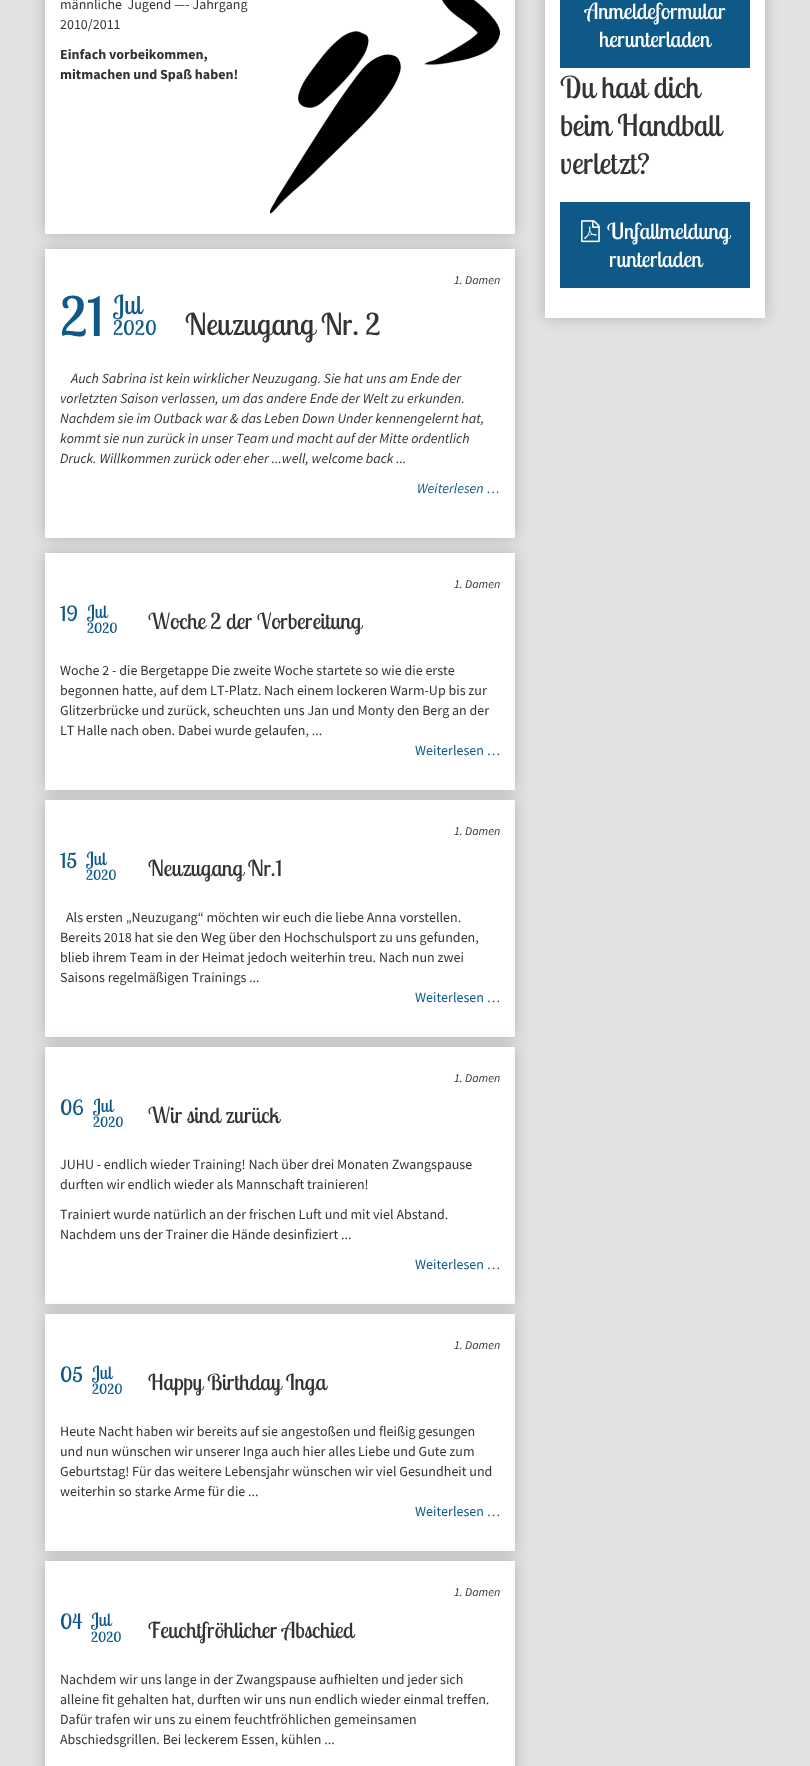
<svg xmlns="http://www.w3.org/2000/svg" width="810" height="1766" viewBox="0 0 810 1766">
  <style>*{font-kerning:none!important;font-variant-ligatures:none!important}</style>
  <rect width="100%" height="100%" fill="#e2e2e2"/>
  <path d="M45 -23h470v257H45z" fill="#00000033" filter="blur(7.5px)"/>
  <path d="M45 0h470v234H45z" fill="#fff"/>
  <image x="270" y="0" width="230" height="214" href="img/1.png"/>
  <path d="M45 249h470v289H45z" fill="#00000033" filter="blur(7.5px)"/>
  <path d="M45 249h470v289H45z" fill="#fff"/>
  <path d="M45 553h470v237H45z" fill="#00000033" filter="blur(7.5px)"/>
  <path d="M45 553h470v237H45z" fill="#fff"/>
  <path d="M45 800h470v237H45z" fill="#00000033" filter="blur(7.5px)"/>
  <path d="M45 800h470v237H45z" fill="#fff"/>
  <path d="M45 1047h470v257H45z" fill="#00000033" filter="blur(7.5px)"/>
  <path d="M45 1047h470v257H45z" fill="#fff"/>
  <path d="M45 1314h470v237H45z" fill="#00000033" filter="blur(7.5px)"/>
  <path d="M45 1314h470v237H45z" fill="#fff"/>
  <path d="M45 1561h470v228H45z" fill="#00000033" filter="blur(7.5px)"/>
  <path d="M45 1561h470v205H45z" fill="#fff"/>
  <path d="M545 -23h220v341H545z" fill="#00000033" filter="blur(7.5px)"/>
  <path d="M545 0h220v318H545z" fill="#fff"/>
  <path d="M560 0h190v68H560z" fill="#0e5988"/>
  <path d="M560 202h190v86H560z" fill="#0e5988"/>
  <image x="581" y="220" width="19" height="23" href="img/2.png"/>
  <g font-family="Source Sans Pro" font-size="14" fill="#333">
    <text x="60" y="9" xml:space="preserve">männliche  Jugend —- Jahrgang</text>
    <text x="60" y="29">2010/2011</text>
  </g>
  <g font-family="Source Sans Pro" font-size="14" font-weight="bold" fill="#333">
    <text x="60" y="59">Einfach vorbeikommen,</text>
    <text x="60" y="79">mitmachen und Spaß haben!</text>
  </g>
  <text x="454" y="284" font-family="Source Sans Pro" font-size="12" font-style="italic" fill="#333">1. Damen</text>
  <text x="60" y="336" font-family="Lobster Two" font-size="54" fill="#0e5988">21</text>
  <text x="113" y="314" font-family="Lobster Two" font-size="26" fill="#0e5988">Jul</text>
  <text x="113" y="335" font-family="Lobster Two" font-size="20" fill="#0e5988">2020</text>
  <text x="185" y="335" font-family="Lobster Two" font-size="30" fill="#333">Neuzugang Nr. 2</text>
  <g font-family="Source Sans Pro" font-size="14" font-style="italic" fill="#333">
    <text x="71" y="383">Auch Sabrina ist kein wirklicher Neuzugang. Sie hat uns am Ende der</text>
    <text x="60" y="403">vorletzten Saison verlassen, um das andere Ende der Welt zu erkunden.</text>
    <text x="60" y="423">Nachdem sie im Outback war &amp; das Leben Down Under kennengelernt hat,</text>
    <text x="60" y="443">kommt sie nun zurück in unser Team und macht auf der Mitte ordentlich</text>
    <text x="60" y="463">Druck. Willkommen zurück oder eher ...well, welcome back ...</text>
  </g>
  <text x="417" y="493" font-family="Source Sans Pro" font-size="14" font-style="italic" fill="#0e5988">Weiterlesen …</text>
  <text x="454" y="588" font-family="Source Sans Pro" font-size="12" font-style="italic" fill="#333">1. Damen</text>
  <text x="60" y="621" font-family="Lobster Two" font-size="21" fill="#0e5988">19</text>
  <text x="87" y="618" font-family="Lobster Two" font-size="18" fill="#0e5988">Jul</text>
  <text x="87" y="633" font-family="Lobster Two" font-size="14" fill="#0e5988">2020</text>
  <text x="148" y="629" font-family="Lobster Two" font-size="22" fill="#333">Woche 2 der Vorbereitung</text>
  <g font-family="Source Sans Pro" font-size="14" fill="#333">
    <text x="60" y="675">Woche 2 - die Bergetappe Die zweite Woche startete so wie die erste</text>
    <text x="60" y="695">begonnen hatte, auf dem LT-Platz.</text>
    <text x="264" y="695">Nach einem lockeren Warm-Up bis zur</text>
    <text x="60" y="715">Glitzerbrücke und zurück, scheuchten uns Jan und Monty den Berg an der</text>
    <text x="60" y="735">LT Halle nach oben. Dabei wurde gelaufen, ...</text>
  </g>
  <text x="415" y="755" font-family="Source Sans Pro" font-size="14" fill="#0e5988">Weiterlesen …</text>
  <text x="454" y="835" font-family="Source Sans Pro" font-size="12" font-style="italic" fill="#333">1. Damen</text>
  <text x="60" y="868" font-family="Lobster Two" font-size="21" fill="#0e5988">15</text>
  <text x="86" y="865" font-family="Lobster Two" font-size="18" fill="#0e5988">Jul</text>
  <text x="86" y="880" font-family="Lobster Two" font-size="14" fill="#0e5988">2020</text>
  <text x="148" y="876" font-family="Lobster Two" font-size="22" fill="#333">Neuzugang Nr.1</text>
  <g font-family="Source Sans Pro" font-size="14" fill="#333">
    <text x="66" y="922">Als ersten „Neuzugang“ möchten wir euch die liebe Anna vorstellen.</text>
    <text x="60" y="942">Bereits 2018 hat sie den Weg über den Hochschulsport zu uns gefunden,</text>
    <text x="60" y="962">blieb ihrem Team in der Heimat jedoch weiterhin treu. Nach nun zwei</text>
    <text x="60" y="982">Saisons regelmäßigen Trainings ...</text>
  </g>
  <text x="415" y="1002" font-family="Source Sans Pro" font-size="14" fill="#0e5988">Weiterlesen …</text>
  <text x="454" y="1082" font-family="Source Sans Pro" font-size="12" font-style="italic" fill="#333">1. Damen</text>
  <text x="60" y="1115" font-family="Lobster Two" font-size="21" fill="#0e5988">06</text>
  <text x="93" y="1112" font-family="Lobster Two" font-size="18" fill="#0e5988">Jul</text>
  <text x="93" y="1127" font-family="Lobster Two" font-size="14" fill="#0e5988">2020</text>
  <text x="148" y="1123" font-family="Lobster Two" font-size="22" fill="#333">Wir sind zurück</text>
  <g font-family="Source Sans Pro" font-size="14" fill="#333">
    <text x="60" y="1169">JUHU - endlich wieder Training! Nach über drei Monaten Zwangspause</text>
    <text x="60" y="1189">durften wir endlich wieder als Mannschaft trainieren!</text>
    <text x="60" y="1219">Trainiert wurde natürlich an der frischen Luft und mit viel Abstand.</text>
    <text x="60" y="1239">Nachdem uns der Trainer die Hände desinfiziert ...</text>
  </g>
  <text x="415" y="1269" font-family="Source Sans Pro" font-size="14" fill="#0e5988">Weiterlesen …</text>
  <text x="454" y="1349" font-family="Source Sans Pro" font-size="12" font-style="italic" fill="#333">1. Damen</text>
  <text x="60" y="1382" font-family="Lobster Two" font-size="21" fill="#0e5988">05</text>
  <text x="92" y="1379" font-family="Lobster Two" font-size="18" fill="#0e5988">Jul</text>
  <text x="92" y="1394" font-family="Lobster Two" font-size="14" fill="#0e5988">2020</text>
  <text x="148" y="1390" font-family="Lobster Two" font-size="22" fill="#333">Happy Birthday Inga</text>
  <g font-family="Source Sans Pro" font-size="14" fill="#333">
    <text x="60" y="1436">Heute Nacht haben wir bereits auf sie angestoßen und fleißig gesungen</text>
    <text x="60" y="1456">und nun wünschen wir unserer Inga auch hier alles Liebe und Gute zum</text>
    <text x="60" y="1476">Geburtstag! Für das weitere Lebensjahr wünschen wir viel Gesundheit und</text>
    <text x="60" y="1496">weiterhin so starke Arme für die ...</text>
  </g>
  <text x="415" y="1516" font-family="Source Sans Pro" font-size="14" fill="#0e5988">Weiterlesen …</text>
  <text x="454" y="1596" font-family="Source Sans Pro" font-size="12" font-style="italic" fill="#333">1. Damen</text>
  <text x="60" y="1629" font-family="Lobster Two" font-size="21" fill="#0e5988">04</text>
  <text x="91" y="1626" font-family="Lobster Two" font-size="18" fill="#0e5988">Jul</text>
  <text x="91" y="1642" font-family="Lobster Two" font-size="14" fill="#0e5988">2020</text>
  <text x="148" y="1638" font-family="Lobster Two" font-size="22" fill="#333">Feuchtfröhlicher Abschied</text>
  <g font-family="Source Sans Pro" font-size="14" fill="#333">
    <text x="60" y="1684">Nachdem wir uns lange in der Zwangspause aufhielten und jeder sich</text>
    <text x="60" y="1704">alleine fit gehalten hat, durften wir uns nun endlich wieder einmal treffen.</text>
    <text x="60" y="1724">Dafür trafen wir uns zu einem feuchtfröhlichen gemeinsamen</text>
    <text x="60" y="1744">Abschiedsgrillen. Bei leckerem Essen, kühlen ...</text>
  </g>
  <g font-family="Lobster Two" font-size="22" fill="#fff">
    <text x="585" y="19">Anmeldeformular</text>
    <text x="599" y="47">herunterladen</text>
  </g>
  <g font-family="Lobster Two" font-size="30" fill="#333">
    <text x="560" y="98">Du hast dich</text>
    <text x="560" y="136">beim Handball</text>
    <text x="560" y="174">verletzt?</text>
  </g>
  <g font-family="Lobster Two" font-size="22" fill="#fff">
    <text x="607" y="239">Unfallmeldung</text>
    <text x="609" y="267">runterladen</text>
  </g>
</svg>
